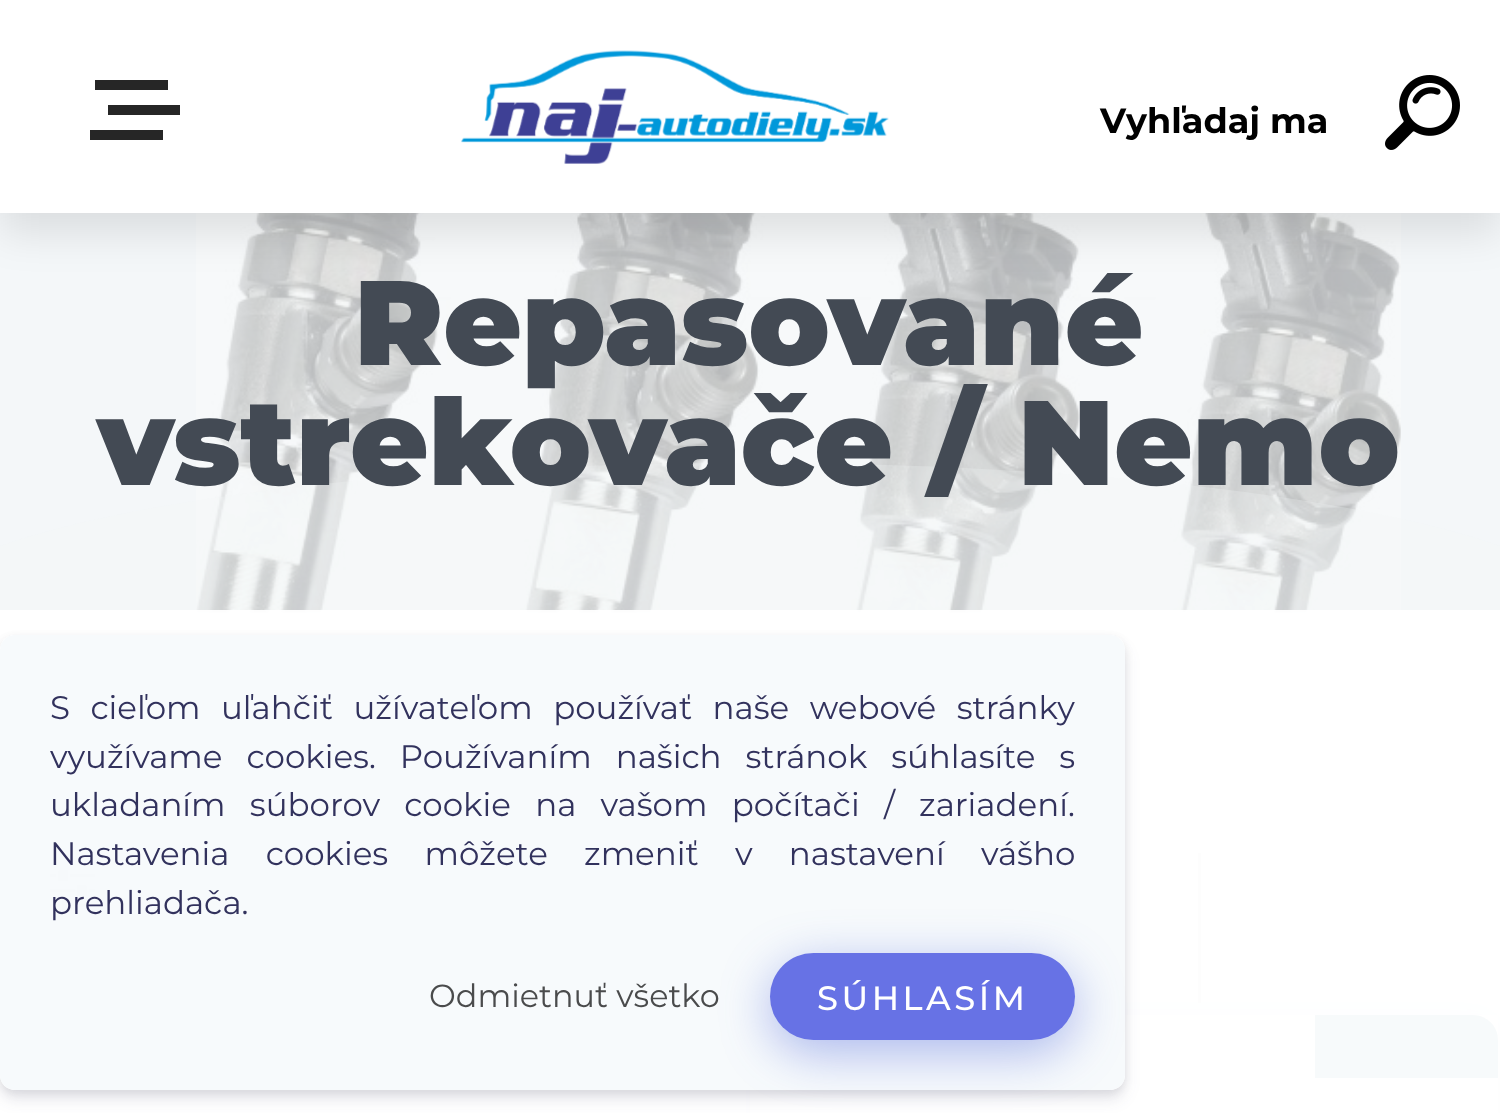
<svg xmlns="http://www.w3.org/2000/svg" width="1500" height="1113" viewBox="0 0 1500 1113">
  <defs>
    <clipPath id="clip1"><path d="M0 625H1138V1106H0ZM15 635H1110C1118.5 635 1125 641.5 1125 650V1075C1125 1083.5 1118.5 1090 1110 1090H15C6.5 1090 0 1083.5 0 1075V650C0 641.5 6.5 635 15 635Z" clip-rule="evenodd"/></clipPath>
    <clipPath id="clip2"><path d="M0 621H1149V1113H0ZM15 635H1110C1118.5 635 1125 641.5 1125 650V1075C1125 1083.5 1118.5 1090 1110 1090H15C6.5 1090 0 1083.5 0 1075V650C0 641.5 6.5 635 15 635Z" clip-rule="evenodd"/></clipPath>
  </defs>
  <rect width="100%" height="100%" fill="#f4f7f9"/>
  <image x="196" y="213" width="1205" height="400" href="img/3.png"/>
  <path d="M0 20h1500v213H0z" fill="#0000001a" filter="blur(20px)"/>
  <path d="M0 0h1500v213H0z" fill="#fff"/>
  <path d="M95 80h73v10H95z" fill="#262626"/>
  <path d="M108 105h72v10H108z" fill="#262626"/>
  <path d="M90 130h73v10H90z" fill="#262626"/>
  <image x="461" y="50" width="428" height="114" href="img/1.png"/>
  <image x="1385" y="75" width="75" height="75" href="img/2.png"/>
  <path d="M750 463C1078 463 1362 497 1500 546V613H0V546C138 497 422 463 750 463Z" fill="#f4f7f940"/>
  <rect y="835" width="155" height="138" rx="15" fill="#25252512" filter="blur(19px)"/>
  <rect y="828" width="155" height="137" rx="15" fill="#4f50741a" filter="blur(4px)"/>
  <rect y="823" width="155" height="137" rx="15" fill="#fdfefe"/>
  <image x="50" y="870" width="45" height="42" href="img/4.png"/>
  <path d="M725 853h3v150H725z" fill="#dadada"/>
  <path d="M970 853h3v100H970z" fill="#dadada"/>
  <path d="M1198 853h3v150H1198z" fill="#dadada"/>
  <path d="M0 1020h750v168H0z" fill="#32325d1a" filter="blur(25px)"/>
  <path d="M0 1015h750v98H0z" fill="#fff"/>
  <path d="M750 1028h748v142H750z" fill="#00000012" filter="blur(19px)"/>
  <path d="M750 1020h748v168H750z" fill="#32325d1a" filter="blur(25px)"/>
  <path d="M750 1015h748v98H750z" fill="#fff"/>
  <path d="M1315 1015H1473C1487 1015 1498 1026 1498 1040V1078H1315Z" fill="#6aa0a8"/>
  <path d="M0 610h1500v503H0z" fill="#fffffff2"/>
  <g clip-path="url(#clip1)">
    <rect y="638" width="1125" height="455" rx="15" fill="#00000014" filter="blur(4px)"/>
  </g>
  <g clip-path="url(#clip2)">
    <rect y="645" width="1125" height="455" rx="15" fill="#32325d1c" filter="blur(7.5px)"/>
  </g>
  <rect y="635" width="1125" height="455" rx="15" fill="#f6f9fce6"/>
  <rect x="770" y="965" width="305" height="88" rx="44" fill="#3a54d666" filter="blur(25px)"/>
  <rect x="770" y="953" width="305" height="87" rx="43.5" fill="#6772e5"/>
  <text x="1100" y="133" font-family="Montserrat" font-size="35" font-weight="bold" fill="#000">Vyhľadaj ma</text>
  <g font-family="Montserrat" font-size="120" font-weight="900" fill="#434a54">
    <text x="354" y="365">Repasované</text>
    <text x="97" y="485">vstrekovače / Nemo</text>
  </g>
  <g font-family="Montserrat" font-size="32.5" fill="#32325d">
    <text x="50" y="719" word-spacing="12">S cieľom uľahčiť užívateľom používať naše webové stránky</text>
    <text x="50" y="768" word-spacing="15.5">využívame cookies. Používaním našich stránok súhlasíte s</text>
    <text x="50" y="816" word-spacing="15.75">ukladaním súborov cookie na vašom počítači / zariadení.</text>
    <text x="50" y="865" word-spacing="27.75">Nastavenia cookies môžete zmeniť v nastavení vášho</text>
    <text x="50" y="914">prehliadača.</text>
  </g>
  <text x="429" y="1007" font-family="Montserrat" font-size="31.9" fill="#4a4b4c">Odmietnuť všetko</text>
  <text x="817" y="1010" font-family="Montserrat" font-size="33.75" font-weight="500" letter-spacing="3.5" fill="#fff">SÚHLASÍM</text>
</svg>
